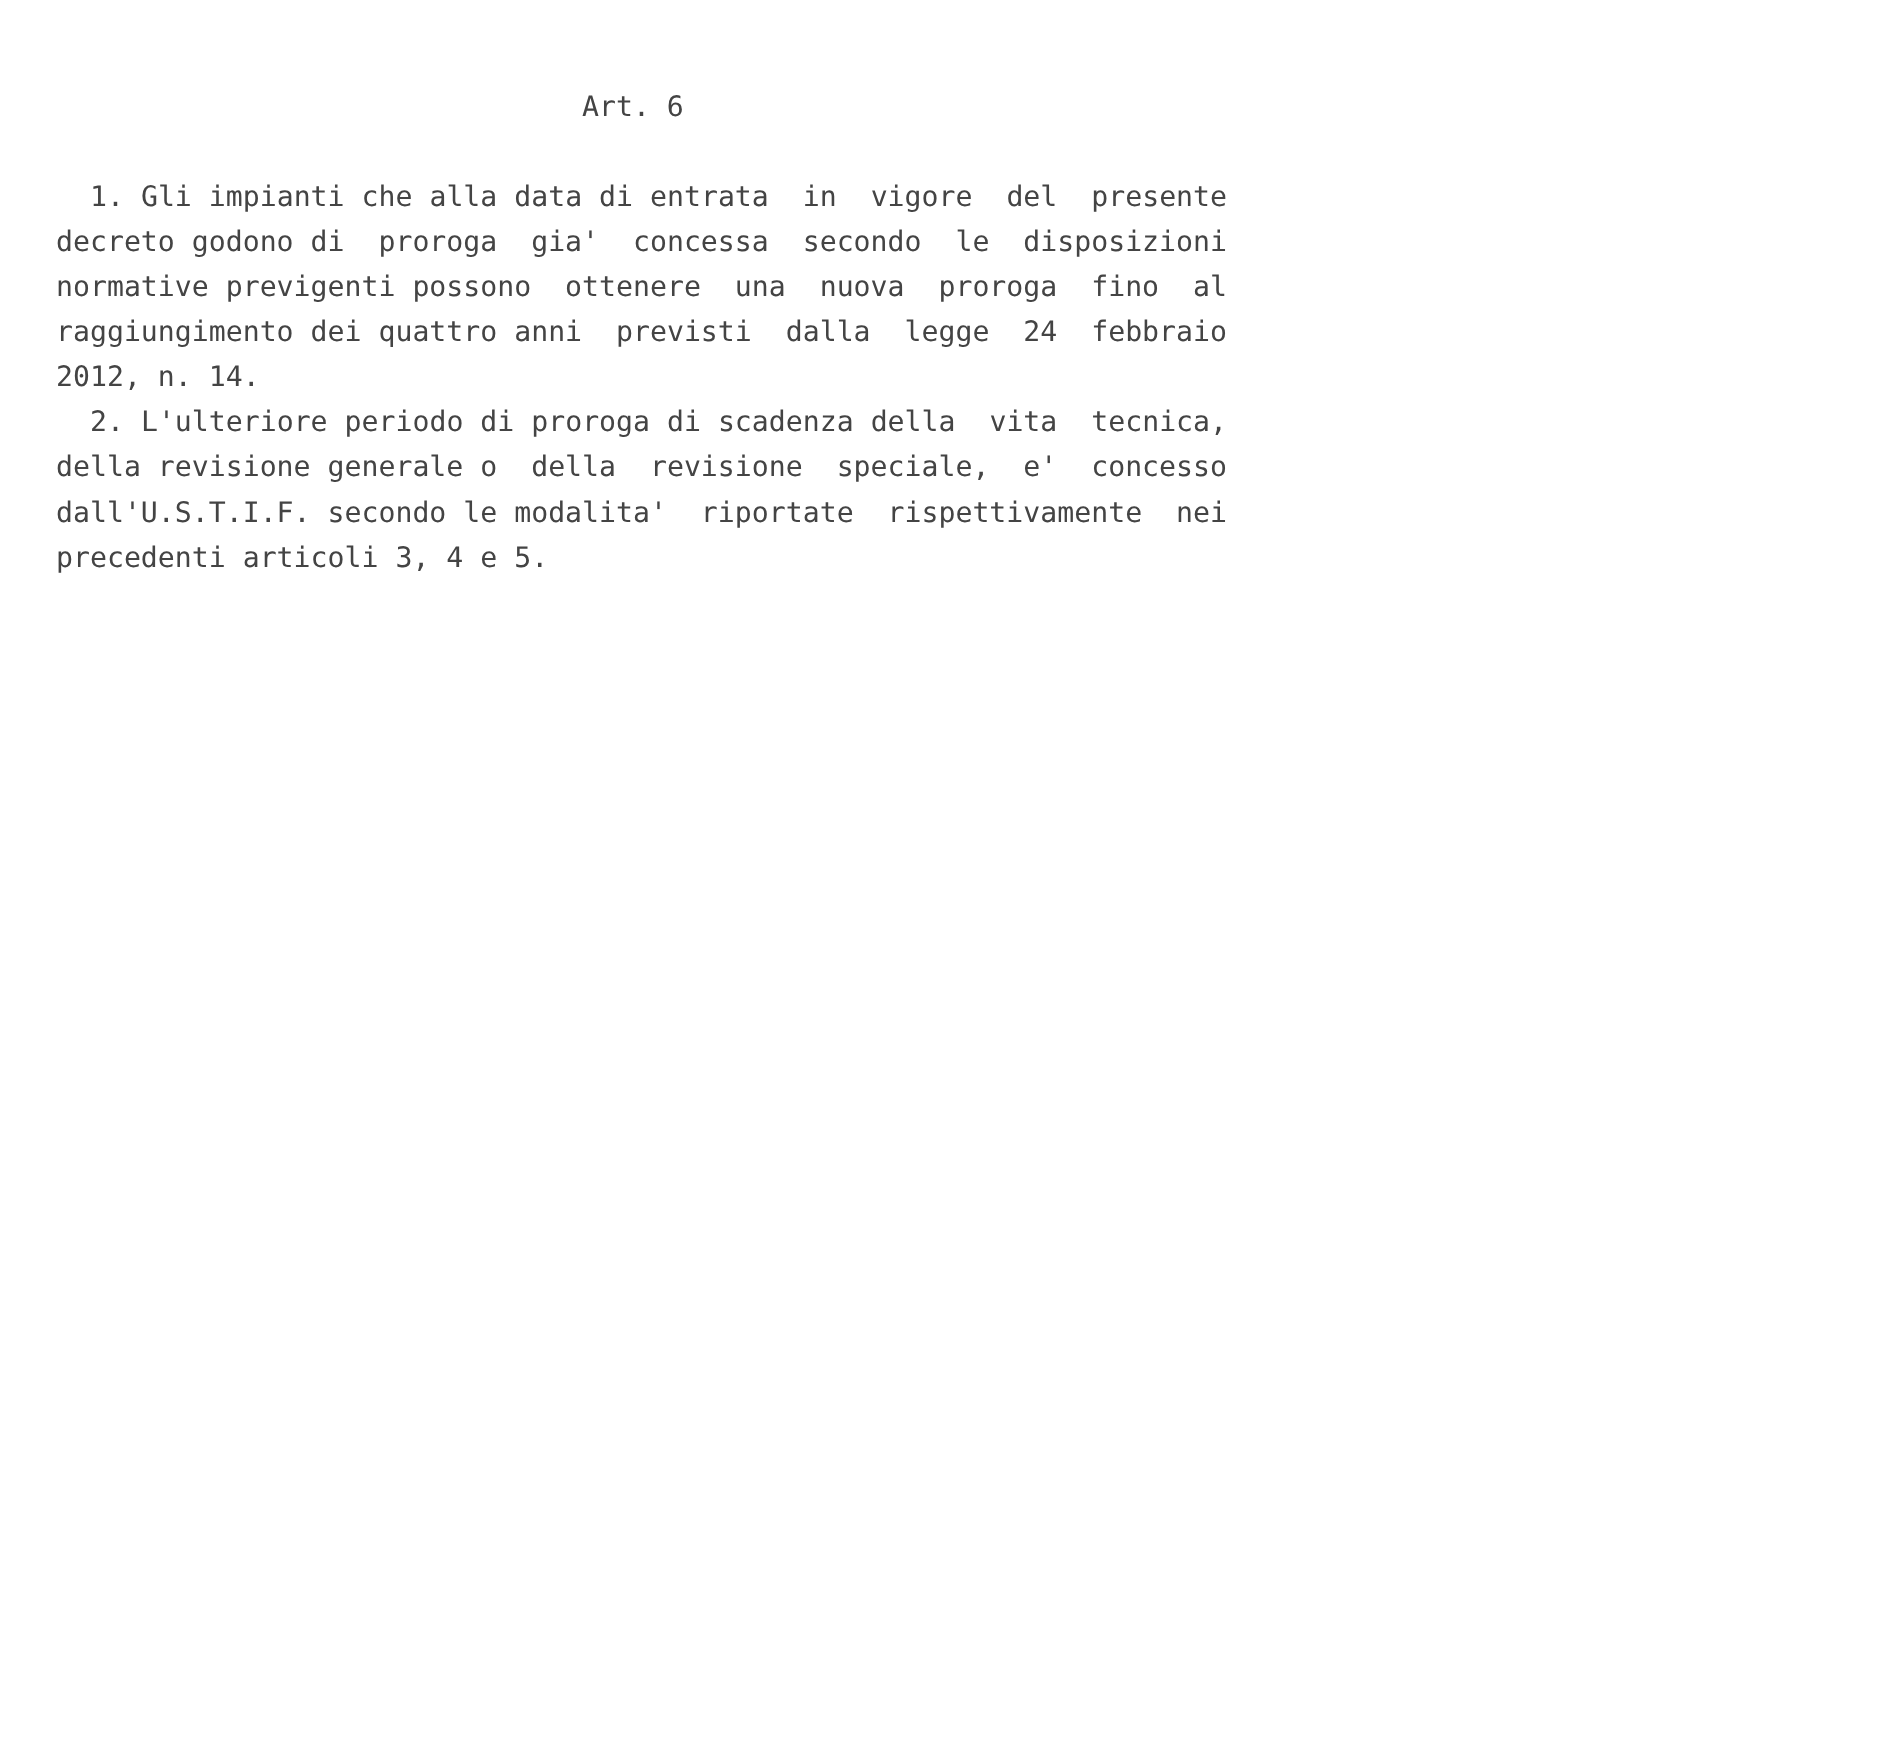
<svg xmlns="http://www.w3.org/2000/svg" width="1885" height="1741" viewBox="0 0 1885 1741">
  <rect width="100%" height="100%" fill="#fff"/>
  <g font-family="DejaVu Sans Mono" font-size="28.2" fill="#444">
    <text x="582" y="116">Art. 6</text>
    <text x="90" y="206" xml:space="preserve">1. Gli impianti che alla data di entrata  in  vigore  del  presente</text>
    <text x="56" y="251" xml:space="preserve">decreto godono di  proroga  gia'  concessa  secondo  le  disposizioni</text>
    <text x="56" y="296" xml:space="preserve">normative previgenti possono  ottenere  una  nuova  proroga  fino  al</text>
    <text x="56" y="341" xml:space="preserve">raggiungimento dei quattro anni  previsti  dalla  legge  24  febbraio</text>
    <text x="56" y="386">2012, n. 14.</text>
    <text x="90" y="431" xml:space="preserve">2. L'ulteriore periodo di proroga di scadenza della  vita  tecnica,</text>
    <text x="56" y="476" xml:space="preserve">della revisione generale o  della  revisione  speciale,  e'  concesso</text>
    <text x="56" y="522" xml:space="preserve">dall'U.S.T.I.F. secondo le modalita'  riportate  rispettivamente  nei</text>
    <text x="56" y="567">precedenti articoli 3, 4 e 5.</text>
  </g>
</svg>
